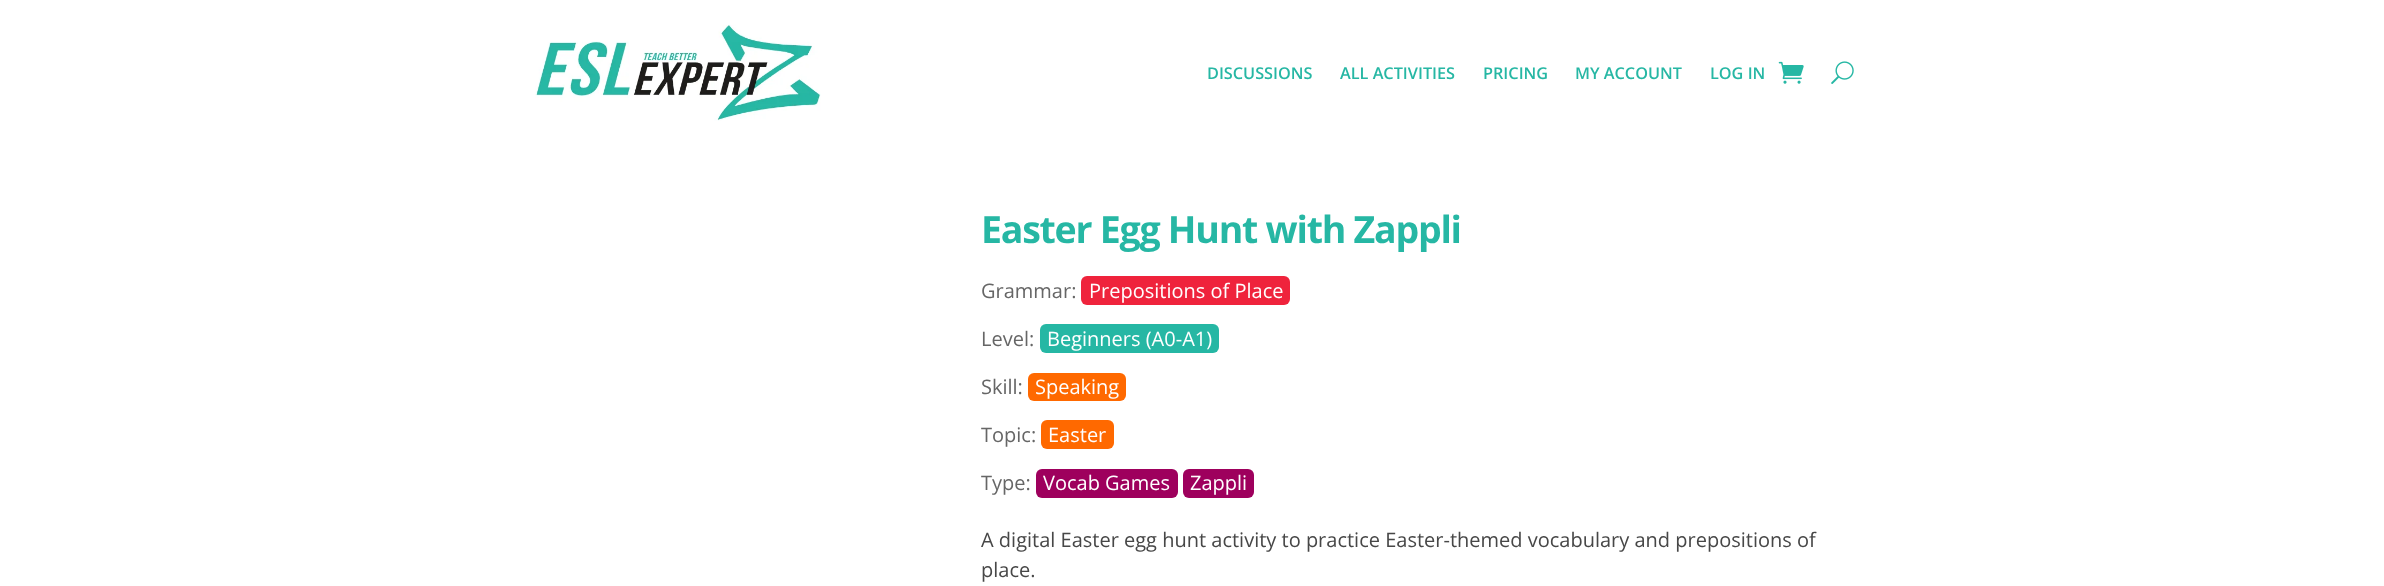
<svg xmlns="http://www.w3.org/2000/svg" width="2384" height="586" viewBox="0 0 2384 586">
  <rect width="100%" height="100%" fill="#fff"/>
  <image x="535" y="24" width="286" height="97" href="img/1.png"/>
  <image x="1778" y="61" width="26" height="23" href="img/2.png"/>
  <image x="1831" y="61" width="23" height="23" href="img/3.png"/>
  <rect x="1081" y="276" width="209" height="29" rx="6" fill="#ef233c"/>
  <rect x="1040" y="324" width="179" height="29" rx="6" fill="#26b7a4"/>
  <rect x="1028" y="373" width="98" height="28" rx="6" fill="#ff6900"/>
  <rect x="1041" y="420" width="73" height="29" rx="6" fill="#ff6900"/>
  <rect x="1036" y="469" width="142" height="29" rx="6" fill="#9e005d"/>
  <rect x="1183" y="469" width="71" height="29" rx="6" fill="#9e005d"/>
  <g font-family="Open Sans" font-size="16.25" font-weight="600" fill="#26b7a4">
    <text x="1207" y="79">DISCUSSIONS</text>
    <text x="1340" y="79">ALL ACTIVITIES</text>
    <text x="1483" y="79">PRICING</text>
    <text x="1575" y="79">MY ACCOUNT</text>
    <text x="1710" y="79">LOG IN</text>
  </g>
  <text x="981" y="243" font-family="Open Sans" font-size="37.5" font-weight="bold" letter-spacing="-1.25" fill="#26b7a4">Easter Egg Hunt with Zappli</text>
  <text x="981" y="298" font-family="Open Sans" font-size="20" fill="#666">Grammar:</text>
  <text x="1089" y="298" font-family="Open Sans" font-size="20" fill="#fff">Prepositions of Place</text>
  <text x="981" y="346" font-family="Open Sans" font-size="20" fill="#666">Level:</text>
  <text x="1047" y="346" font-family="Open Sans" font-size="20" fill="#fff">Beginners (A0-A1)</text>
  <text x="981" y="394" font-family="Open Sans" font-size="20" fill="#666">Skill:</text>
  <text x="1035" y="394" font-family="Open Sans" font-size="20" fill="#fff">Speaking</text>
  <text x="981" y="442" font-family="Open Sans" font-size="20" fill="#666">Topic:</text>
  <text x="1048" y="442" font-family="Open Sans" font-size="20" fill="#fff">Easter</text>
  <text x="981" y="490" font-family="Open Sans" font-size="20" fill="#666">Type:</text>
  <g font-family="Open Sans" font-size="20" fill="#fff">
    <text x="1043" y="490">Vocab Games</text>
    <text x="1190" y="490">Zappli</text>
  </g>
  <g font-family="Open Sans" font-size="20" fill="#474747">
    <text x="981" y="547">A digital Easter egg hunt activity to practice Easter-themed vocabulary and prepositions of</text>
    <text x="981" y="577">place.</text>
  </g>
</svg>
